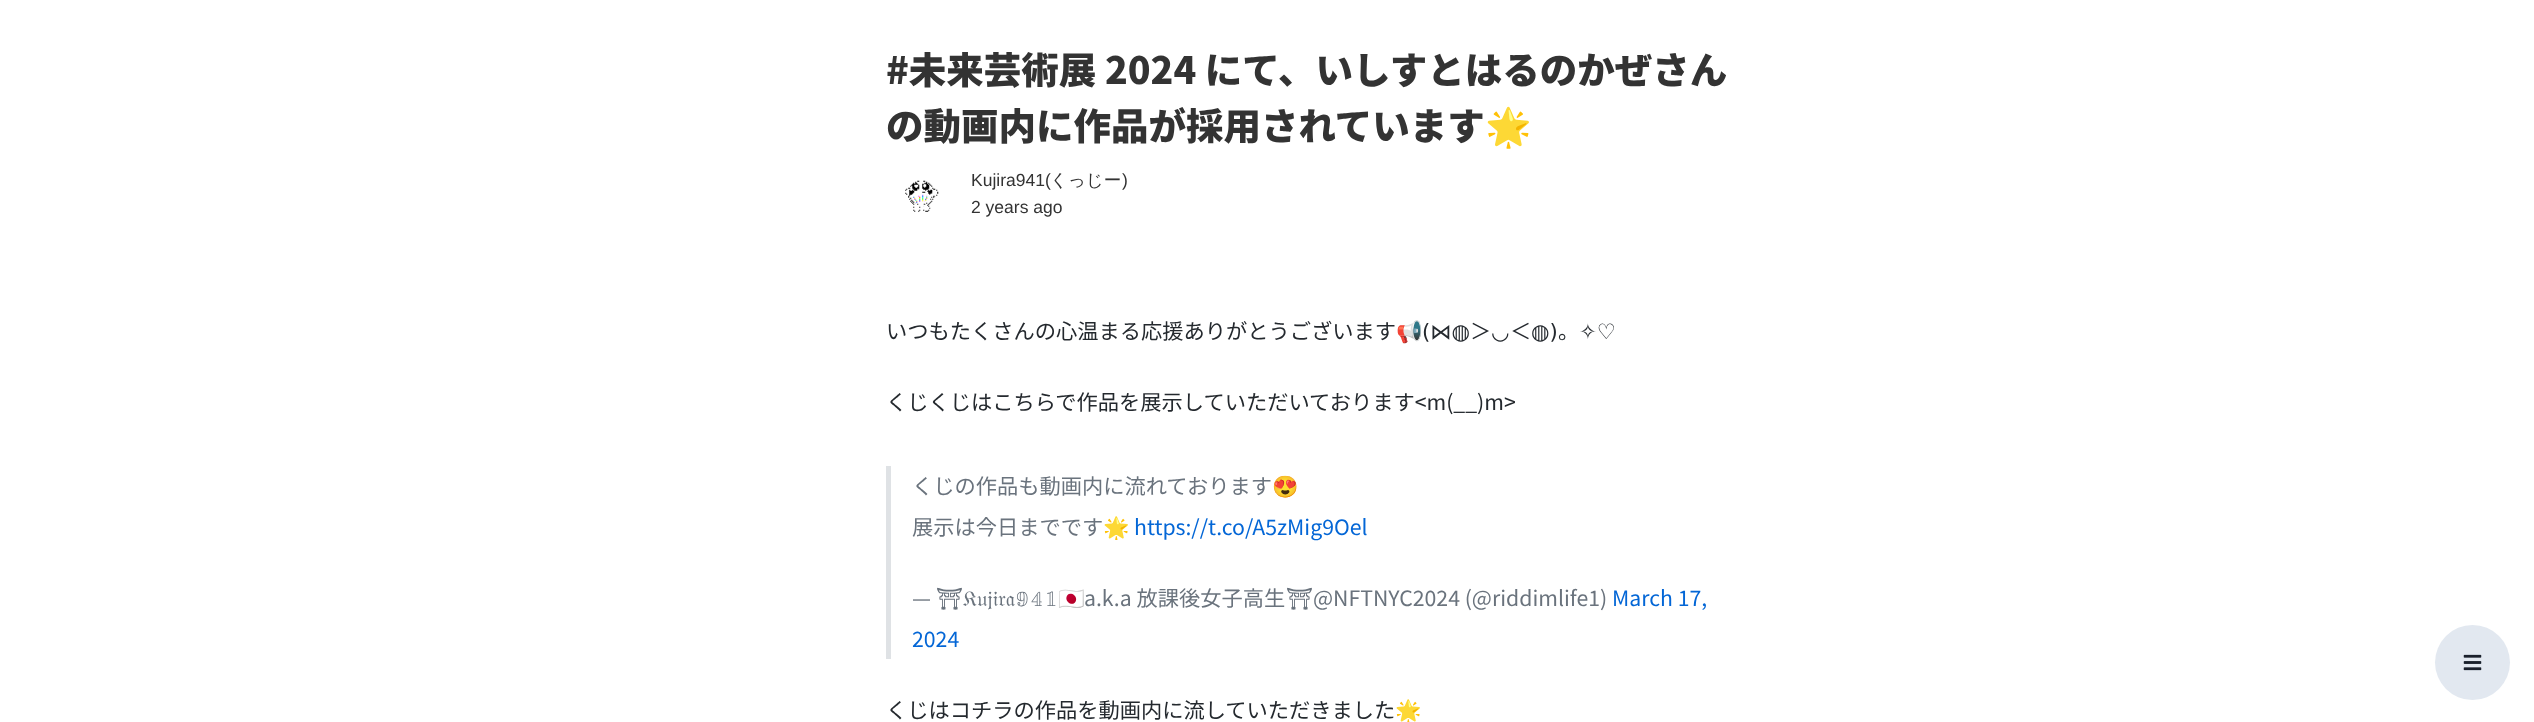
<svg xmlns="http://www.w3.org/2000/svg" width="2534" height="722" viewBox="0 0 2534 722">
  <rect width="100%" height="100%" fill="#fff"/>
  <image x="905" y="180" width="34" height="32" href="img/1.png"/>
  <path d="M886 466h5v193H886z" fill="#dfe2e5"/>
  <circle cx="2472.5" cy="662.5" r="37.5" fill="#e2e8f0"/>
  <image x="2463" y="654" width="19" height="17" href="img/2.png"/>
  <g font-family="Noto Sans JP" font-size="37.5" font-weight="900" fill="#333">
    <text x="886" y="84">#未来芸術展 2024 にて、いしすとはるのかぜさん</text>
    <text x="886" y="140">の動画内に作品が採用されています</text>
  </g>
  <text x="1485" y="140" font-family="Noto Color Emoji" font-size="37.5" font-weight="bold" fill="#333">🌟</text>
  <text x="971" y="186" font-family="Liberation Sans" font-size="17.5" fill="#333">Kujira941(</text>
  <text x="1050" y="186" font-family="WenQuanYi Zen Hei" font-size="17.5" font-weight="500" fill="#333">くっじー</text>
  <g font-family="Liberation Sans" font-size="17.5" fill="#333">
    <text x="1122" y="186">)</text>
    <text x="971" y="213">2 years ago</text>
  </g>
  <text x="886" y="339" font-family="Noto Sans JP" font-size="21.25" fill="#24292e">いつもたくさんの心温まる応援ありがとうございます</text>
  <text x="1396" y="339" font-family="Noto Color Emoji" font-size="21.25" fill="#24292e">📢</text>
  <text x="1422" y="339" font-family="DejaVu Sans" font-size="21.25" fill="#24292e">(⋈◍</text>
  <text x="1470" y="339" font-family="Noto Sans JP" font-size="21.25" fill="#24292e">＞</text>
  <text x="1491" y="339" font-family="DejaVu Sans" font-size="21.25" fill="#24292e">◡</text>
  <text x="1510" y="339" font-family="Noto Sans JP" font-size="21.25" fill="#24292e">＜</text>
  <text x="1531" y="339" font-family="DejaVu Sans" font-size="21.25" fill="#24292e">◍)</text>
  <text x="1558" y="339" font-family="Noto Sans JP" font-size="21.25" fill="#24292e">。</text>
  <text x="1579" y="339" font-family="DejaVu Sans" font-size="21.25" fill="#24292e">✧♡</text>
  <text x="886" y="410" font-family="Noto Sans JP" font-size="21.25" fill="#24292e">くじくじはこちらで作品を展示していただいております&lt;m(__)m&gt;</text>
  <text x="912" y="494" font-family="Noto Sans JP" font-size="21.25" fill="#6a737d">くじの作品も動画内に流れております</text>
  <text x="1272" y="494" font-family="Noto Color Emoji" font-size="21.25" fill="#6a737d">😍</text>
  <text x="912" y="535" font-family="Noto Sans JP" font-size="21.25" fill="#6a737d">展示は今日までです</text>
  <text x="1103" y="535" font-family="Noto Color Emoji" font-size="21.25" fill="#6a737d">🌟</text>
  <text x="1134" y="535" font-family="Noto Sans JP" font-size="21.25" fill="#0366d6">https://t.co/A5zMig9Oel</text>
  <text x="912" y="606" font-family="Noto Sans JP" font-size="21.25" fill="#6a737d">—</text>
  <text x="936" y="606" font-family="Noto Emoji" font-size="21.25" font-weight="bold" fill="#6a737d">⛩</text>
  <text x="963" y="606" font-family="FreeSerif" font-size="21.25" fill="#6a737d">𝔎𝔲𝔧𝔦𝔯𝔞𝟡𝟜𝟙</text>
  <text x="1058" y="606" font-family="'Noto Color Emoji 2'" font-size="21.25" fill="#6a737d">🇯🇵</text>
  <text x="1084" y="606" font-family="Noto Sans JP" font-size="21.25" fill="#6a737d">a.k.a 放課後女子高生</text>
  <text x="1286" y="606" font-family="Noto Emoji" font-size="21.25" font-weight="bold" fill="#6a737d">⛩</text>
  <text x="1313" y="606" font-family="Noto Sans JP" font-size="21.25" fill="#6a737d">@NFTNYC2024 (@riddimlife1)</text>
  <g font-family="Noto Sans JP" font-size="21.25" fill="#0366d6">
    <text x="1612" y="606">March 17,</text>
    <text x="912" y="647">2024</text>
  </g>
  <text x="886" y="718" font-family="Noto Sans JP" font-size="21.25" fill="#24292e">くじはコチラの作品を動画内に流していただきました</text>
  <text x="1395" y="718" font-family="Noto Color Emoji" font-size="21.25" fill="#24292e">🌟</text>
</svg>
